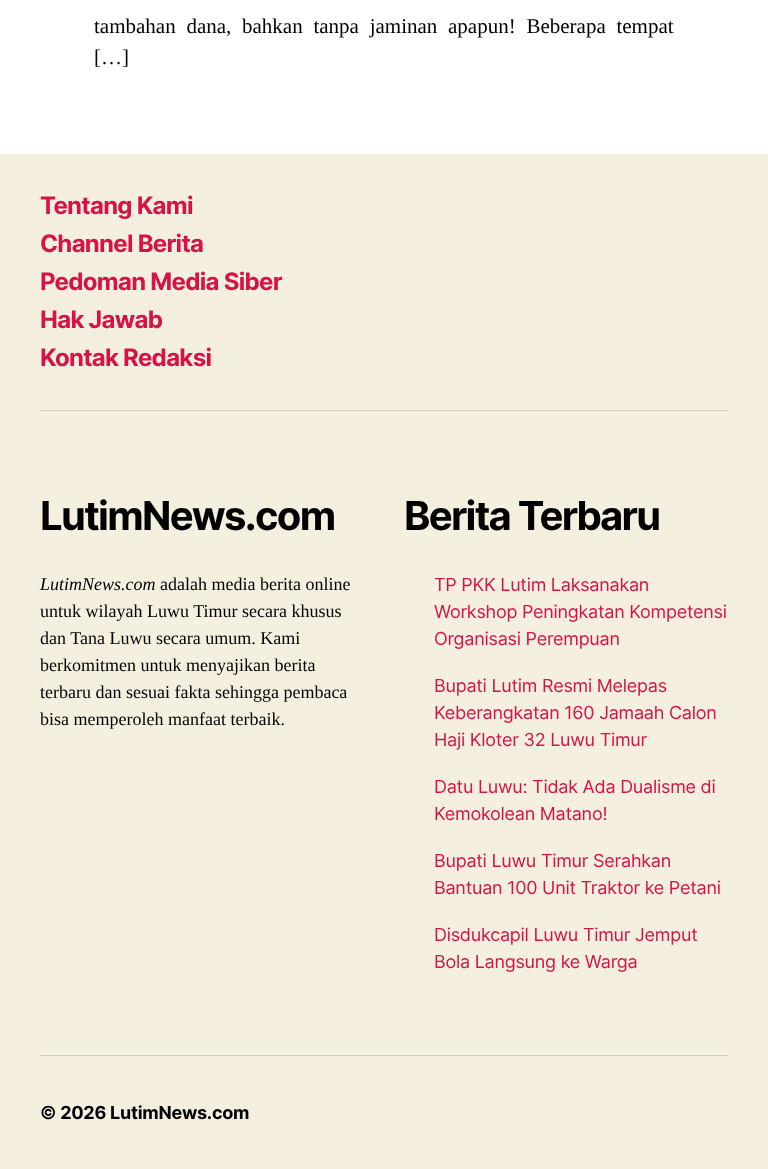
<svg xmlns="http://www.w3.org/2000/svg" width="768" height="1169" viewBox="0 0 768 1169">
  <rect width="100%" height="100%" fill="#fff"/>
  <path d="M0 154h768v1015H0z" fill="#f5efe0"/>
  <path d="M40 410h688v1H40z" fill="#d7cfab"/>
  <path d="M40 1055h688v1H40z" fill="#d7cfab"/>
  <g font-family="Liberation Serif" font-size="21" fill="#000">
    <text x="94" y="33" word-spacing="5.5">tambahan dana, bahkan tanpa jaminan apapun! Beberapa tempat</text>
    <text x="94" y="64">[…]</text>
  </g>
  <g font-family="Inter" font-size="24" font-weight="bold" letter-spacing="-0.7" fill="#d61347">
    <text x="40" y="214">Tentang Kami</text>
    <text x="40" y="252">Channel Berita</text>
    <text x="40" y="290">Pedoman Media Siber</text>
    <text x="40" y="328">Hak Jawab</text>
    <text x="40" y="366">Kontak Redaksi</text>
  </g>
  <text x="40" y="530" font-family="Inter" font-size="40" font-weight="bold" letter-spacing="-1.7" fill="#000">LutimNews.com</text>
  <text x="40" y="590" font-family="Liberation Serif" font-size="18" font-style="italic" fill="#000">LutimNews.com</text>
  <g font-family="Liberation Serif" font-size="18" fill="#000">
    <text x="160" y="590">adalah media berita online</text>
    <text x="40" y="617">untuk wilayah Luwu Timur secara khusus</text>
    <text x="40" y="644">dan Tana Luwu secara umum. Kami</text>
    <text x="40" y="671">berkomitmen untuk menyajikan berita</text>
    <text x="40" y="698">terbaru dan sesuai fakta sehingga pembaca</text>
    <text x="40" y="725">bisa memperoleh manfaat terbaik.</text>
  </g>
  <text x="404" y="530" font-family="Inter" font-size="40" font-weight="bold" letter-spacing="-1.7" fill="#000">Berita Terbaru</text>
  <g font-family="Inter" font-size="18" letter-spacing="-0.25" fill="#d61347">
    <text x="434" y="591">TP PKK Lutim Laksanakan</text>
    <text x="434" y="618">Workshop Peningkatan Kompetensi</text>
    <text x="434" y="645">Organisasi Perempuan</text>
    <text x="434" y="692">Bupati Lutim Resmi Melepas</text>
    <text x="434" y="719">Keberangkatan 160 Jamaah Calon</text>
    <text x="434" y="746">Haji Kloter 32 Luwu Timur</text>
    <text x="434" y="793">Datu Luwu: Tidak Ada Dualisme di</text>
    <text x="434" y="820">Kemokolean Matano!</text>
    <text x="434" y="867">Bupati Luwu Timur Serahkan</text>
    <text x="434" y="894">Bantuan 100 Unit Traktor ke Petani</text>
    <text x="434" y="941">Disdukcapil Luwu Timur Jemput</text>
    <text x="434" y="968">Bola Langsung ke Warga</text>
  </g>
  <text x="40" y="1119" font-family="Inter" font-size="18" font-weight="bold" letter-spacing="-0.25" fill="#000">© 2026 LutimNews.com</text>
</svg>
